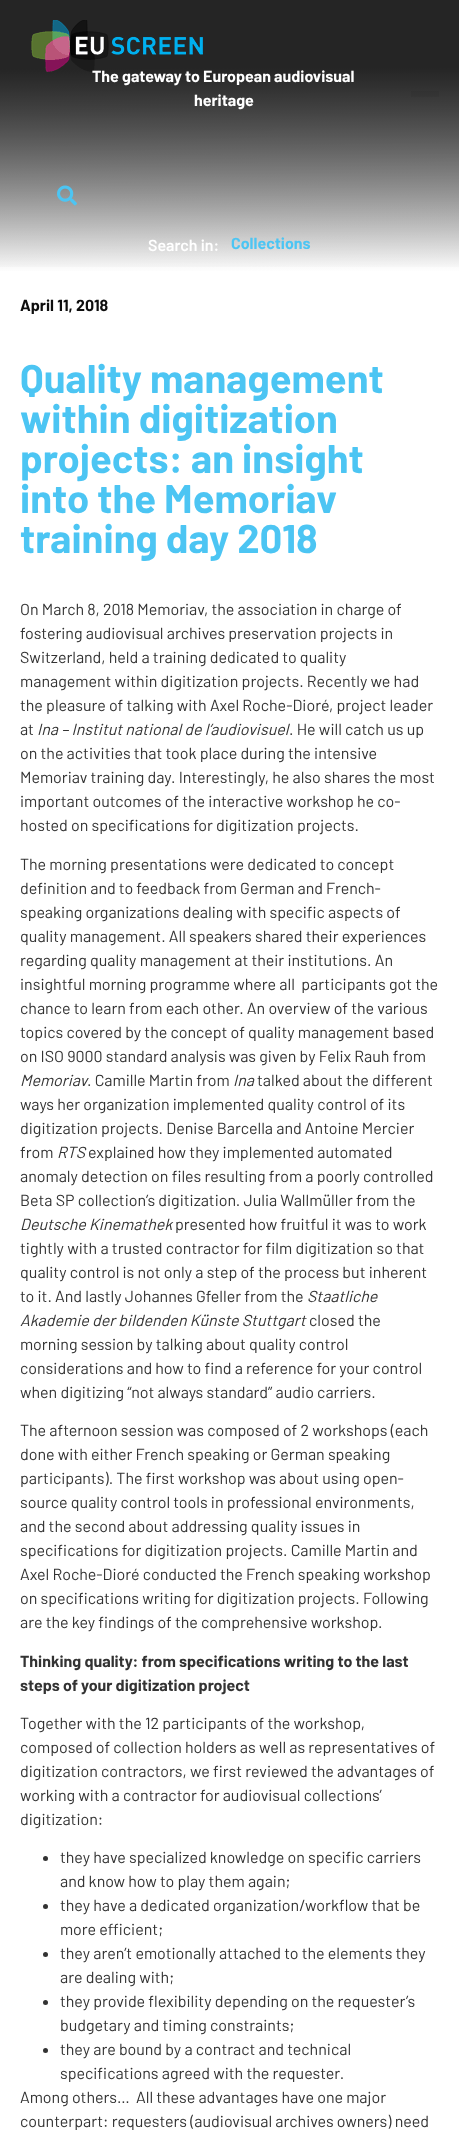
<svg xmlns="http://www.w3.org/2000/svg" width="459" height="2139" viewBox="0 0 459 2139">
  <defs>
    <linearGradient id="g1" gradientUnits="userSpaceOnUse" x1="229" y1="0" x2="230" y2="273"><stop offset="0.25" stop-color="#616161"/><stop offset="1" stop-color="#fff"/></linearGradient>
    <linearGradient id="g2" gradientUnits="userSpaceOnUse" x1="229" y1="0" x2="230" y2="273"><stop offset="0.25" stop-color="#000" stop-opacity="0.62"/><stop offset="1" stop-color="#000" stop-opacity="0"/></linearGradient>
  </defs>
  <rect width="100%" height="100%" fill="#fff"/>
  <path d="M0 0h459v271H0z" fill="url(#g1)"/>
  <path d="M0 0h459v267H0z" fill="url(#g2)"/>
  <image x="31" y="20" width="172" height="52" href="img/1.png"/>
  <image x="57" y="185" width="20" height="21" href="img/2.png"/>
  <path d="M411 91h28v6H411z" fill="#0000000d"/>
  <circle cx="45.5" cy="1858.5" r="2.5" fill="#333"/>
  <circle cx="45.5" cy="1906.5" r="2.5" fill="#333"/>
  <circle cx="45.5" cy="1954.5" r="2.5" fill="#333"/>
  <circle cx="45.5" cy="2002.5" r="2.5" fill="#333"/>
  <circle cx="45.5" cy="2050.5" r="2.5" fill="#333"/>
  <g font-family="Barlow" font-size="16" font-weight="bold" fill="#fff">
    <text x="92" y="82">The gateway to European audiovisual</text>
    <text x="194" y="106">heritage</text>
  </g>
  <text x="148" y="251" font-family="Barlow" font-size="16" font-weight="600" fill="#fff">Search in:</text>
  <text x="231" y="249" font-family="Barlow" font-size="16" font-weight="bold" fill="#4cc5f3">Collections</text>
  <text x="20" y="311" font-family="Barlow" font-size="16" font-weight="bold" fill="#0e0e0e">April 11, 2018</text>
  <g font-family="Barlow" font-size="40" font-weight="bold" fill="#4cc5f3">
    <text x="20" y="393">Quality management</text>
    <text x="20" y="433">within digitization</text>
    <text x="20" y="473">projects: an insight</text>
    <text x="20" y="513">into the Memoriav</text>
    <text x="20" y="553">training day 2018</text>
  </g>
  <g font-family="Barlow" font-size="16" fill="#333">
    <text x="20" y="615">On March 8, 2018 Memoriav, the association in charge of</text>
    <text x="20" y="639">fostering audiovisual archives preservation projects in</text>
    <text x="20" y="663">Switzerland, held a training dedicated to quality</text>
    <text x="20" y="687">management within digitization projects. Recently we had</text>
    <text x="20" y="711">the pleasure of talking with Axel Roche-Dioré, project leader</text>
    <text x="20" y="735">at</text>
  </g>
  <text x="37" y="735" font-family="Barlow" font-size="16" font-style="italic" fill="#333">Ina – Institut national de l’audiovisuel</text>
  <g font-family="Barlow" font-size="16" fill="#333">
    <text x="289" y="735">. He will catch us up</text>
    <text x="20" y="759">on the activities that took place during the intensive</text>
    <text x="20" y="783">Memoriav training day. Interestingly, he also shares the most</text>
    <text x="20" y="807">important outcomes of the interactive workshop he co-</text>
    <text x="20" y="831">hosted on specifications for digitization projects.</text>
    <text x="20" y="870">The morning presentations were dedicated to concept</text>
    <text x="20" y="894">definition and to feedback from German and French-</text>
    <text x="20" y="918">speaking organizations dealing with specific aspects of</text>
    <text x="20" y="942">quality management. All speakers shared their experiences</text>
    <text x="20" y="966">regarding quality management at their institutions. An</text>
    <text x="20" y="990" xml:space="preserve">insightful morning programme where all  participants got the</text>
    <text x="20" y="1014">chance to learn from each other. An overview of the various</text>
    <text x="20" y="1038">topics covered by the concept of quality management based</text>
    <text x="20" y="1062">on ISO 9000 standard analysis was given by Felix Rauh from</text>
  </g>
  <text x="20" y="1086" font-family="Barlow" font-size="16" font-style="italic" fill="#333">Memoriav</text>
  <text x="87" y="1086" font-family="Barlow" font-size="16" fill="#333">. Camille Martin from</text>
  <text x="233" y="1086" font-family="Barlow" font-size="16" font-style="italic" fill="#333">Ina</text>
  <g font-family="Barlow" font-size="16" fill="#333">
    <text x="257" y="1086">talked about the different</text>
    <text x="20" y="1110">ways her organization implemented quality control of its</text>
    <text x="20" y="1134">digitization projects. Denise Barcella and Antoine Mercier</text>
    <text x="20" y="1158">from</text>
  </g>
  <text x="57" y="1158" font-family="Barlow" font-size="16" font-style="italic" fill="#333">RTS</text>
  <g font-family="Barlow" font-size="16" fill="#333">
    <text x="88" y="1158">explained how they implemented automated</text>
    <text x="20" y="1182">anomaly detection on files resulting from a poorly controlled</text>
    <text x="20" y="1206">Beta SP collection’s digitization. Julia Wallmüller from the</text>
  </g>
  <text x="20" y="1230" font-family="Barlow" font-size="16" font-style="italic" fill="#333">Deutsche Kinemathek</text>
  <g font-family="Barlow" font-size="16" fill="#333">
    <text x="175" y="1230">presented how fruitful it was to work</text>
    <text x="20" y="1254">tightly with a trusted contractor for film digitization so that</text>
    <text x="20" y="1278">quality control is not only a step of the process but inherent</text>
    <text x="20" y="1302">to it. And lastly Johannes Gfeller from the</text>
  </g>
  <g font-family="Barlow" font-size="16" font-style="italic" fill="#333">
    <text x="307" y="1302">Staatliche</text>
    <text x="20" y="1326">Akademie der bildenden Künste Stuttgart</text>
  </g>
  <g font-family="Barlow" font-size="16" fill="#333">
    <text x="309" y="1326">closed the</text>
    <text x="20" y="1350">morning session by talking about quality control</text>
    <text x="20" y="1374">considerations and how to find a reference for your control</text>
    <text x="20" y="1398">when digitizing “not always standard” audio carriers.</text>
    <text x="20" y="1436">The afternoon session was composed of 2 workshops (each</text>
    <text x="20" y="1460">done with either French speaking or German speaking</text>
    <text x="20" y="1484">participants). The first workshop was about using open-</text>
    <text x="20" y="1508">source quality control tools in professional environments,</text>
    <text x="20" y="1532">and the second about addressing quality issues in</text>
    <text x="20" y="1556">specifications for digitization projects. Camille Martin and</text>
    <text x="20" y="1580">Axel Roche-Dioré conducted the French speaking workshop</text>
    <text x="20" y="1604">on specifications writing for digitization projects. Following</text>
    <text x="20" y="1628">are the key findings of the comprehensive workshop.</text>
  </g>
  <g font-family="Barlow" font-size="16" font-weight="bold" fill="#333">
    <text x="20" y="1667">Thinking quality: from specifications writing to the last</text>
    <text x="20" y="1691">steps of your digitization project</text>
  </g>
  <g font-family="Barlow" font-size="16" fill="#333">
    <text x="20" y="1729">Together with the 12 participants of the workshop,</text>
    <text x="20" y="1753">composed of collection holders as well as representatives of</text>
    <text x="20" y="1777">digitization contractors, we first reviewed the advantages of</text>
    <text x="20" y="1801">working with a contractor for audiovisual collections’</text>
    <text x="20" y="1825">digitization:</text>
    <text x="60" y="1863">they have specialized knowledge on specific carriers</text>
    <text x="60" y="1887">and know how to play them again;</text>
    <text x="60" y="1911">they have a dedicated organization/workflow that be</text>
    <text x="60" y="1935">more efficient;</text>
    <text x="60" y="1959">they aren’t emotionally attached to the elements they</text>
    <text x="60" y="1983">are dealing with;</text>
    <text x="60" y="2007">they provide flexibility depending on the requester’s</text>
    <text x="60" y="2031">budgetary and timing constraints;</text>
    <text x="60" y="2055">they are bound by a contract and technical</text>
    <text x="60" y="2079">specifications agreed with the requester.</text>
    <text x="20" y="2103" xml:space="preserve">Among others…  All these advantages have one major</text>
    <text x="20" y="2127">counterpart: requesters (audiovisual archives owners) need</text>
  </g>
</svg>
